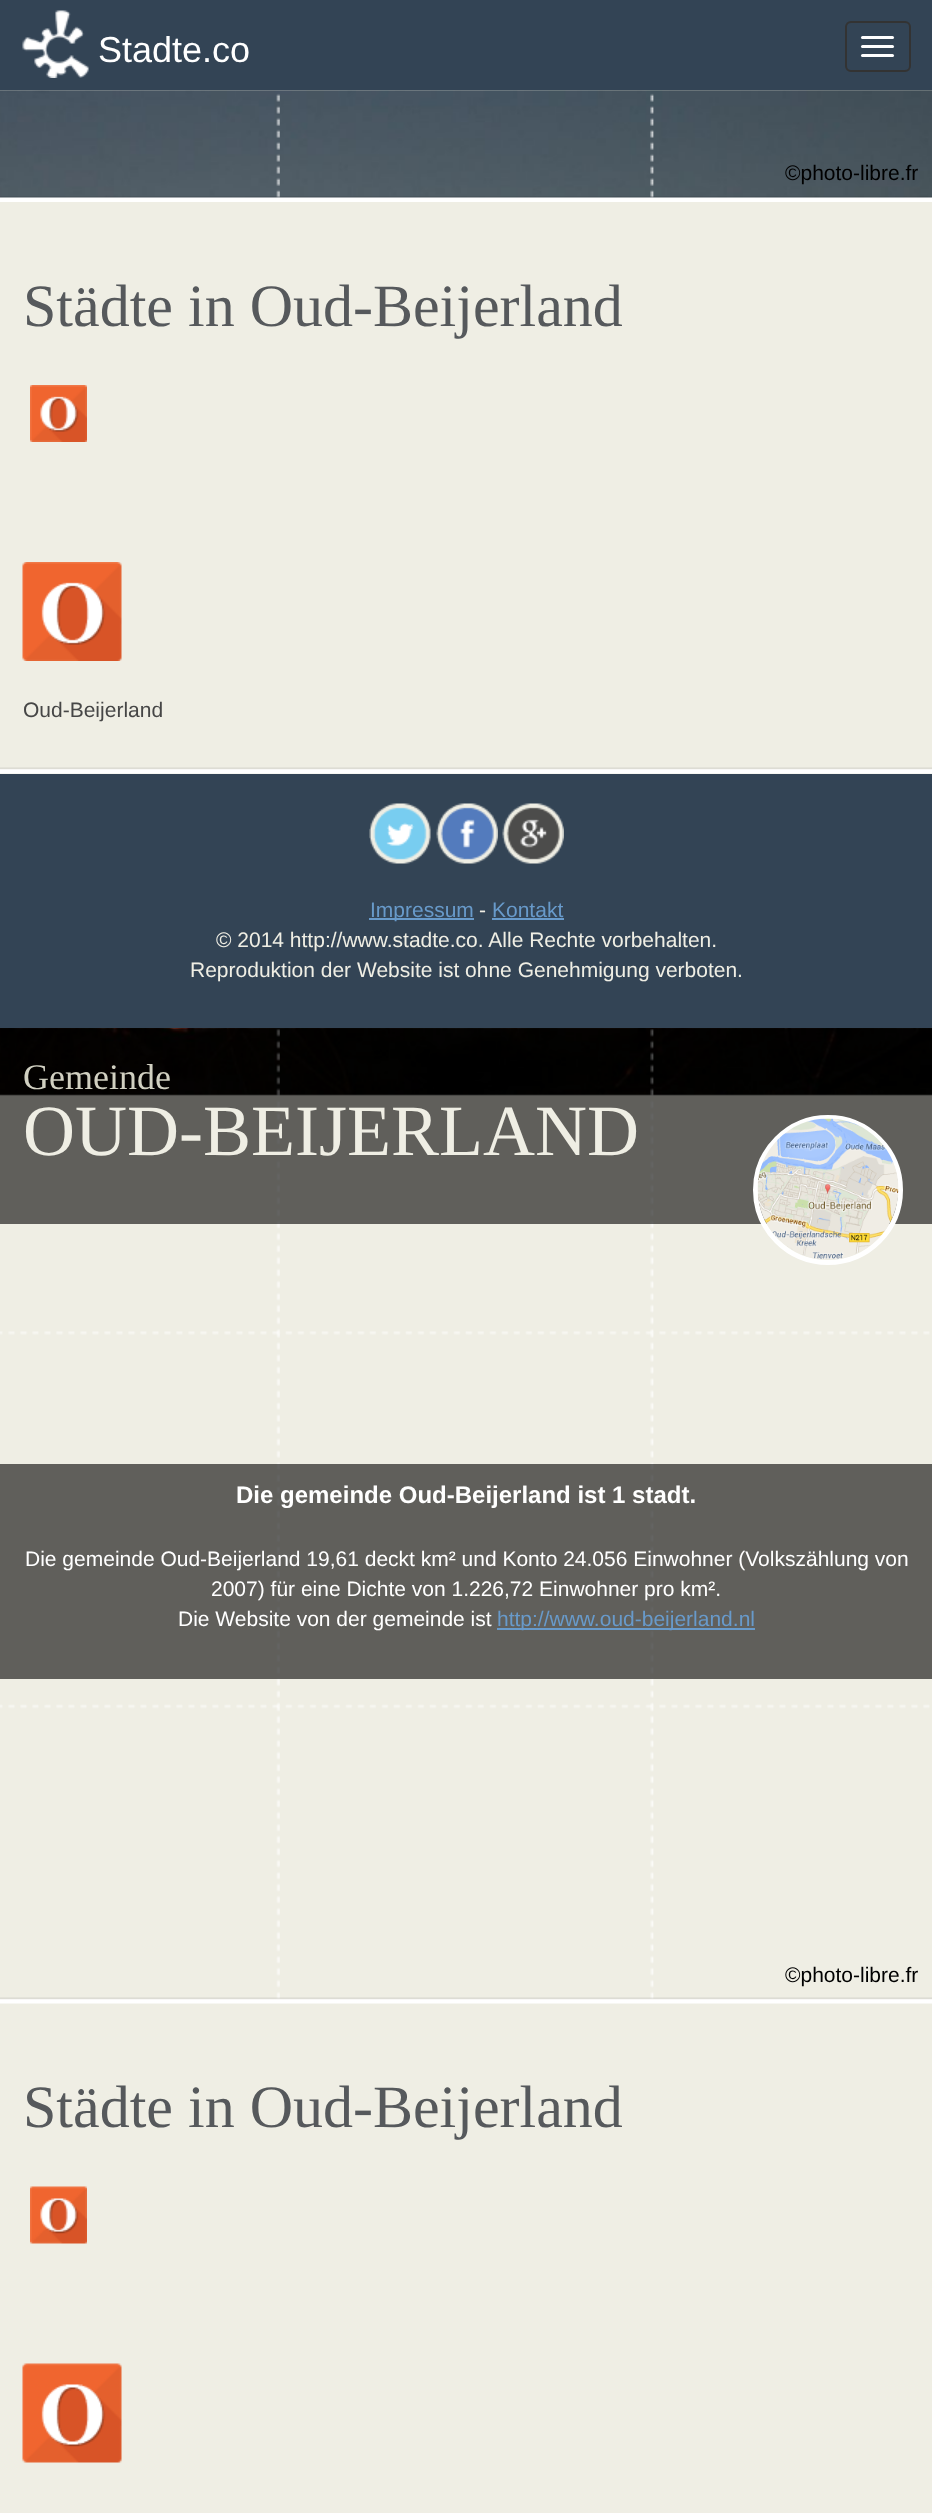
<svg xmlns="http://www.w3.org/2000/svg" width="932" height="2513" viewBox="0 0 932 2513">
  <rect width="100%" height="100%" fill="#efeee4"/>
  <path d="M0 0h932v90H0z" fill="#345"/>
  <image x="22" y="10" width="67" height="68" href="img/1.png"/>
  <rect x="846" y="22" width="64" height="49" rx="5" fill="none" stroke="#333" stroke-width="2"/>
  <rect x="861" y="36" width="33" height="3" rx="1.5" fill="#fff"/>
  <rect x="861" y="45" width="33" height="3" rx="1.5" fill="#fff"/>
  <rect x="861" y="54" width="33" height="3" rx="1.5" fill="#fff"/>
  <image x="0" y="90" width="932" height="108" href="img/2.png"/>
  <image x="276" y="93" width="378" height="105" href="img/3.png"/>
  <image x="0" y="196" width="932" height="6" href="img/4.png"/>
  <image x="30" y="385" width="57" height="57" href="img/5.png"/>
  <image x="0" y="767" width="932" height="7" href="img/6.png"/>
  <image x="22" y="562" width="100" height="99" href="img/7.png"/>
  <path d="M0 774h932v254H0z" fill="#345"/>
  <image x="369" y="803" width="62" height="61" href="img/8.png"/>
  <image x="436" y="803" width="62" height="61" href="img/9.png"/>
  <image x="502" y="803" width="62" height="61" href="img/10.png"/>
  <path d="M369 918h105v2H369z" fill="#689aca"/>
  <path d="M492 918h72v2H492z" fill="#689aca"/>
  <image x="0" y="1028" width="932" height="68" href="img/11.png"/>
  <image x="0" y="1029" width="930" height="970" href="img/12.png"/>
  <path d="M0 1029h932v195H0z" fill="#00000099"/>
  <circle cx="828" cy="1190" r="72.5" fill="none" stroke="#fff" stroke-width="5"/>
  <image x="757" y="1118" width="142" height="141" href="img/13.png"/>
  <image x="0" y="1997" width="932" height="7" href="img/14.png"/>
  <path d="M0 1464h932v215H0z" fill="#00000099"/>
  <path d="M497 1628h258v2H497z" fill="#689aca"/>
  <image x="30" y="2186" width="57" height="58" href="img/15.png"/>
  <image x="22" y="2363" width="100" height="100" href="img/16.png"/>
  <text x="98" y="62" font-family="Liberation Sans" font-size="36" fill="#fff">Stadte.co</text>
  <text x="785" y="180" font-family="Liberation Sans" font-size="21" fill="#000">©photo-libre.fr</text>
  <text x="23" y="326" font-family="Liberation Serif" font-size="60" fill="#56595c">Städte in Oud-Beijerland</text>
  <text x="23" y="717" font-family="Liberation Sans" font-size="21" fill="#464646">Oud-Beijerland</text>
  <text x="370" y="917" font-family="Liberation Sans" font-size="21" fill="#689aca">Impressum</text>
  <text x="479" y="917" font-family="Liberation Sans" font-size="21" fill="#efeee4">-</text>
  <text x="492" y="917" font-family="Liberation Sans" font-size="21" fill="#689aca">Kontakt</text>
  <g font-family="Liberation Sans" font-size="21" fill="#efeee4">
    <text x="216" y="947">© 2014 http://www.stadte.co. Alle Rechte vorbehalten.</text>
    <text x="190" y="977">Reproduktion der Website ist ohne Genehmigung verboten.</text>
  </g>
  <text x="23" y="1089" font-family="Liberation Serif" font-size="36" fill="#d1d0c1">Gemeinde</text>
  <text x="23" y="1155" font-family="Liberation Serif" font-size="72" fill="#efeee4">OUD-BEIJERLAND</text>
  <text x="236" y="1503" font-family="Liberation Sans" font-size="24" font-weight="bold" fill="#fff">Die gemeinde Oud-Beijerland ist 1 stadt.</text>
  <g font-family="Liberation Sans" font-size="21" fill="#fff">
    <text x="25" y="1566">Die gemeinde Oud-Beijerland 19,61 deckt km² und Konto 24.056 Einwohner (Volkszählung von</text>
    <text x="211" y="1596">2007) für eine Dichte von 1.226,72 Einwohner pro km².</text>
    <text x="178" y="1626">Die Website von der gemeinde ist</text>
  </g>
  <text x="497" y="1626" font-family="Liberation Sans" font-size="21" fill="#689aca">http://www.oud-beijerland.nl</text>
  <text x="785" y="1982" font-family="Liberation Sans" font-size="21" fill="#000">©photo-libre.fr</text>
  <text x="23" y="2127" font-family="Liberation Serif" font-size="60" fill="#56595c">Städte in Oud-Beijerland</text>
</svg>
